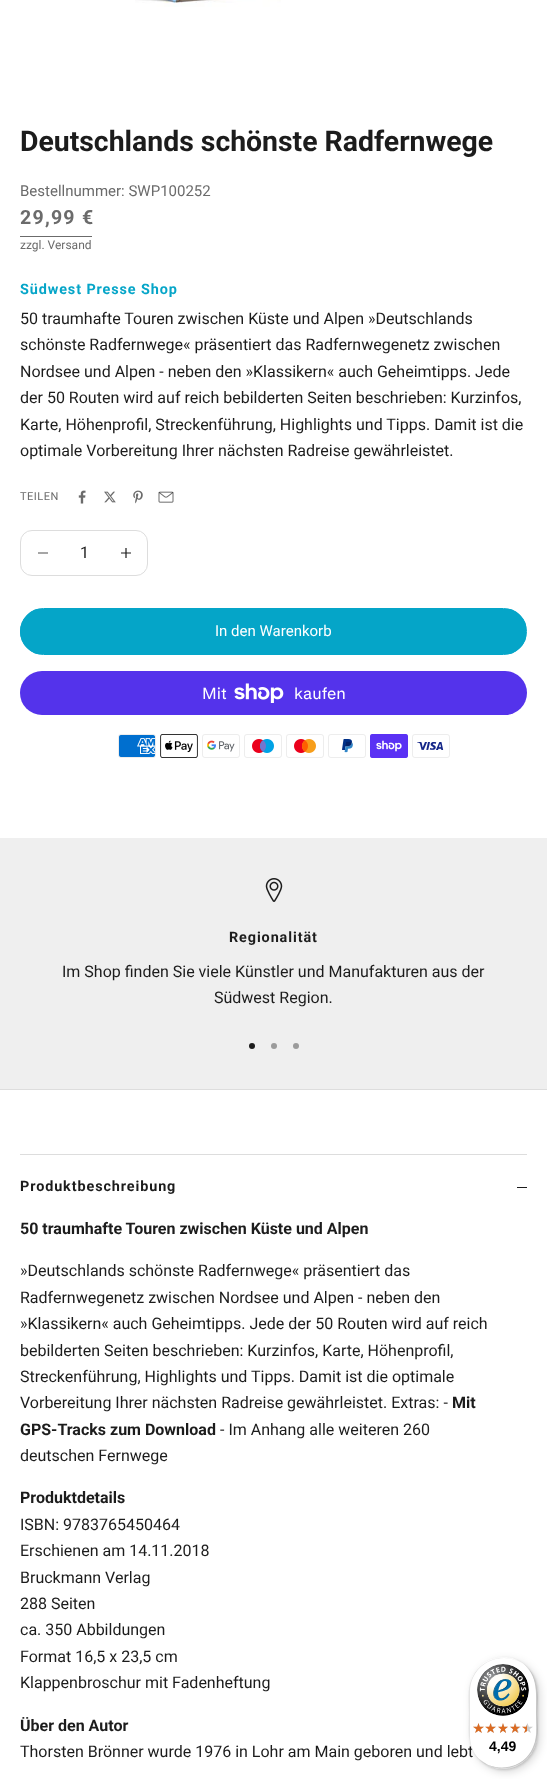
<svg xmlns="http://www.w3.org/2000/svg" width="547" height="1779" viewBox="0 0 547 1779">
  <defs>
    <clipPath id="clip1"><rect x="20" y="608" width="507" height="47" rx="23.5"/></clipPath>
  </defs>
  <rect width="100%" height="100%" fill="#fff"/>
  <image x="135" y="0" width="146" height="7" href="img/1.png"/>
  <path d="M20 236h72v1H20z" fill="#6b6b6b"/>
  <image x="78" y="490" width="8" height="14" href="img/2.png"/>
  <image x="104" y="491" width="12" height="12" href="img/3.png"/>
  <image x="133" y="490" width="10" height="14" href="img/4.png"/>
  <image x="158" y="491" width="16" height="12" href="img/5.png"/>
  <rect x="20.5" y="530.5" width="127" height="45" rx="11.5" fill="none" stroke="#ddd"/>
  <path d="M38 553H48" fill="none" stroke="#6b6b6b" stroke-width="1.2"/>
  <path d="M126 548V558M121 553H131" fill="none" stroke="#1c1c1c" stroke-width="1.2"/>
  <g clip-path="url(#clip1)">
    <path d="M20 609h506v45H20z" fill="#05a5c8"/>
  </g>
  <rect x="20.5" y="608.5" width="506" height="46" rx="23" fill="none" stroke="#05a5c8"/>
  <rect x="20" y="671" width="507" height="44" rx="22" fill="#5433eb"/>
  <image x="234" y="683" width="50" height="20" href="img/6.png"/>
  <image x="118" y="734" width="38" height="24" href="img/7.png"/>
  <image x="160" y="734" width="38" height="24" href="img/8.png"/>
  <image x="202" y="734" width="38" height="24" href="img/9.png"/>
  <image x="244" y="734" width="38" height="24" href="img/10.png"/>
  <image x="286" y="734" width="38" height="24" href="img/11.png"/>
  <image x="328" y="734" width="38" height="24" href="img/12.png"/>
  <image x="370" y="734" width="38" height="24" href="img/13.png"/>
  <image x="412" y="734" width="38" height="24" href="img/14.png"/>
  <path d="M0 838h547v251H0z" fill="#efefef"/>
  <image x="265" y="878" width="18" height="24" href="img/15.png"/>
  <circle cx="252" cy="1046" r="3" fill="#1c1c1c"/>
  <circle cx="274" cy="1046" r="3" fill="#9b9b9b"/>
  <circle cx="296" cy="1046" r="3" fill="#9b9b9b"/>
  <path d="M0 1089h547v1H0z" fill="#ddd"/>
  <path d="M20 1154h507v1H20z" fill="#ddd"/>
  <path d="M517 1187h10v1H517z" fill="#1c1c1c"/>
  <rect x="472" y="1660" width="68" height="112" rx="34" fill="#00000026" filter="blur(4px)"/>
  <rect x="470" y="1658" width="68" height="112" rx="34" fill="#00000026" filter="blur(1px)"/>
  <text x="20" y="151" font-family="Roboto" font-size="28.4" font-weight="bold" fill="#1c1c1c">Deutschlands schönste Radfernwege</text>
  <text x="20" y="196" font-family="Roboto" font-size="15" fill="#6b6b6b">Bestellnummer: SWP100252</text>
  <text x="20" y="224" font-family="Roboto" font-size="19.5" font-weight="bold" letter-spacing="1.25" fill="#6b6b6b">29,99 €</text>
  <text x="20" y="249" font-family="Roboto" font-size="12" fill="#6b6b6b">zzgl. Versand</text>
  <text x="20" y="294" font-family="Roboto" font-size="14.4" font-weight="bold" letter-spacing="0.9" fill="#05a5c8">Südwest Presse Shop</text>
  <g font-family="Roboto" font-size="16" fill="#1c1c1c">
    <text x="20" y="324">50 traumhafte Touren zwischen Küste und Alpen »Deutschlands</text>
    <text x="20" y="350">schönste Radfernwege« präsentiert das Radfernwegenetz zwischen</text>
    <text x="20" y="377">Nordsee und Alpen - neben den »Klassikern« auch Geheimtipps. Jede</text>
    <text x="20" y="403">der 50 Routen wird auf reich bebilderten Seiten beschrieben: Kurzinfos,</text>
    <text x="20" y="430">Karte, Höhenprofil, Streckenführung, Highlights und Tipps. Damit ist die</text>
    <text x="20" y="456">optimale Vorbereitung Ihrer nächsten Radreise gewährleistet.</text>
  </g>
  <text x="20" y="500" font-family="Roboto" font-size="11" letter-spacing="0.5" fill="#6b6b6b">TEILEN</text>
  <text x="80" y="558" font-family="Roboto" font-size="16" fill="#1c1c1c">1</text>
  <text x="215" y="636" font-family="Roboto" font-size="15" fill="#fff">In den Warenkorb</text>
  <g font-family="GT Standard" font-size="16" fill="#fff">
    <text x="202" y="699">Mit</text>
    <text x="294" y="699">kaufen</text>
  </g>
  <text x="229" y="942" font-family="Roboto" font-size="14.4" font-weight="bold" letter-spacing="0.9" fill="#1c1c1c">Regionalität</text>
  <g font-family="Roboto" font-size="16" fill="#1c1c1c">
    <text x="62" y="977">Im Shop finden Sie viele Künstler und Manufakturen aus der</text>
    <text x="214" y="1003">Südwest Region.</text>
  </g>
  <text x="20" y="1191" font-family="Roboto" font-size="14.4" font-weight="bold" letter-spacing="0.9" fill="#1c1c1c">Produktbeschreibung</text>
  <text x="20" y="1234" font-family="Roboto" font-size="16" font-weight="bold" fill="#1c1c1c">50 traumhafte Touren zwischen Küste und Alpen</text>
  <g font-family="Roboto" font-size="16" fill="#1c1c1c">
    <text x="20" y="1276">»Deutschlands schönste Radfernwege« präsentiert das</text>
    <text x="20" y="1303">Radfernwegenetz zwischen Nordsee und Alpen - neben den</text>
    <text x="20" y="1329">»Klassikern« auch Geheimtipps. Jede der 50 Routen wird auf reich</text>
    <text x="20" y="1356">bebilderten Seiten beschrieben: Kurzinfos, Karte, Höhenprofil,</text>
    <text x="20" y="1382">Streckenführung, Highlights und Tipps. Damit ist die optimale</text>
    <text x="20" y="1408">Vorbereitung Ihrer nächsten Radreise gewährleistet. Extras: -</text>
  </g>
  <g font-family="Roboto" font-size="16" font-weight="bold" fill="#1c1c1c">
    <text x="452" y="1408">Mit</text>
    <text x="20" y="1435">GPS-Tracks zum Download</text>
  </g>
  <g font-family="Roboto" font-size="16" fill="#1c1c1c">
    <text x="220" y="1435">- Im Anhang alle weiteren 260</text>
    <text x="20" y="1461">deutschen Fernwege</text>
  </g>
  <text x="20" y="1503" font-family="Roboto" font-size="16" font-weight="bold" fill="#1c1c1c">Produktdetails</text>
  <g font-family="Roboto" font-size="16" fill="#1c1c1c">
    <text x="20" y="1530">ISBN: 9783765450464</text>
    <text x="20" y="1556">Erschienen am 14.11.2018</text>
    <text x="20" y="1583">Bruckmann Verlag</text>
    <text x="20" y="1609">288 Seiten</text>
    <text x="20" y="1635">ca. 350 Abbildungen</text>
    <text x="20" y="1662">Format 16,5 x 23,5 cm</text>
    <text x="20" y="1688">Klappenbroschur mit Fadenheftung</text>
  </g>
  <text x="20" y="1731" font-family="Roboto" font-size="16" font-weight="bold" fill="#1c1c1c">Über den Autor</text>
  <text x="20" y="1757" font-family="Roboto" font-size="16" fill="#1c1c1c">Thorsten Brönner wurde 1976 in Lohr am Main geboren und lebt</text>
  <rect x="469" y="1657" width="68" height="112" rx="34" fill="#fff"/>
  <path d="M504 1658C512 1658 520 1661 526 1666C509 1651 481 1657 472 1678C467 1688 469 1702 469 1713C469 1728 466 1745 478 1758C473 1752 470 1744 470 1736V1692C470 1673 485 1658 504 1658Z" fill="#e5e5e5"/>
  <path d="M480 1760C497 1775 525 1769 534 1748C539 1738 537 1724 537 1713C537 1698 540 1681 528 1668C538 1681 536 1697 536 1712C536 1723 538 1737 533 1747C525 1768 497 1774 480 1760Z" fill="#00000033"/>
  <path d="M476 1756C483 1764 492 1769 503 1769C522 1769 537 1754 537 1735V1691C537 1680 532 1671 524 1664C531 1671 536 1680 536 1690V1734C536 1753 521 1768 502 1768C492 1768 483 1763 476 1756Z" fill="#32323233"/>
  <path d="M476 1756C483 1764 492 1769 503 1769C522 1769 537 1754 537 1735V1691C537 1680 532 1671 524 1664C531 1671 536 1680 536 1690V1734C536 1753 521 1768 502 1768C492 1768 483 1763 476 1756Z" fill="#ffffff4d"/>
  <image x="477" y="1664" width="52" height="52" href="img/16.png"/>
  <image x="473" y="1723" width="11" height="10" href="img/17.png"/>
  <image x="486" y="1723" width="10" height="10" href="img/18.png"/>
  <image x="498" y="1723" width="10" height="10" href="img/19.png"/>
  <image x="510" y="1723" width="11" height="10" href="img/20.png"/>
  <image x="522" y="1723" width="11" height="10" href="img/20.png"/>
  <image x="473" y="1723" width="11" height="10" href="img/21.png"/>
  <image x="485" y="1723" width="11" height="10" href="img/22.png"/>
  <image x="498" y="1723" width="10" height="10" href="img/23.png"/>
  <image x="510" y="1723" width="10" height="10" href="img/24.png"/>
  <image x="522" y="1724" width="5" height="9" href="img/25.png"/>
  <text x="489" y="1751" font-family="Liberation Sans" font-size="14" font-weight="bold" fill="#000">4,49</text>
</svg>
